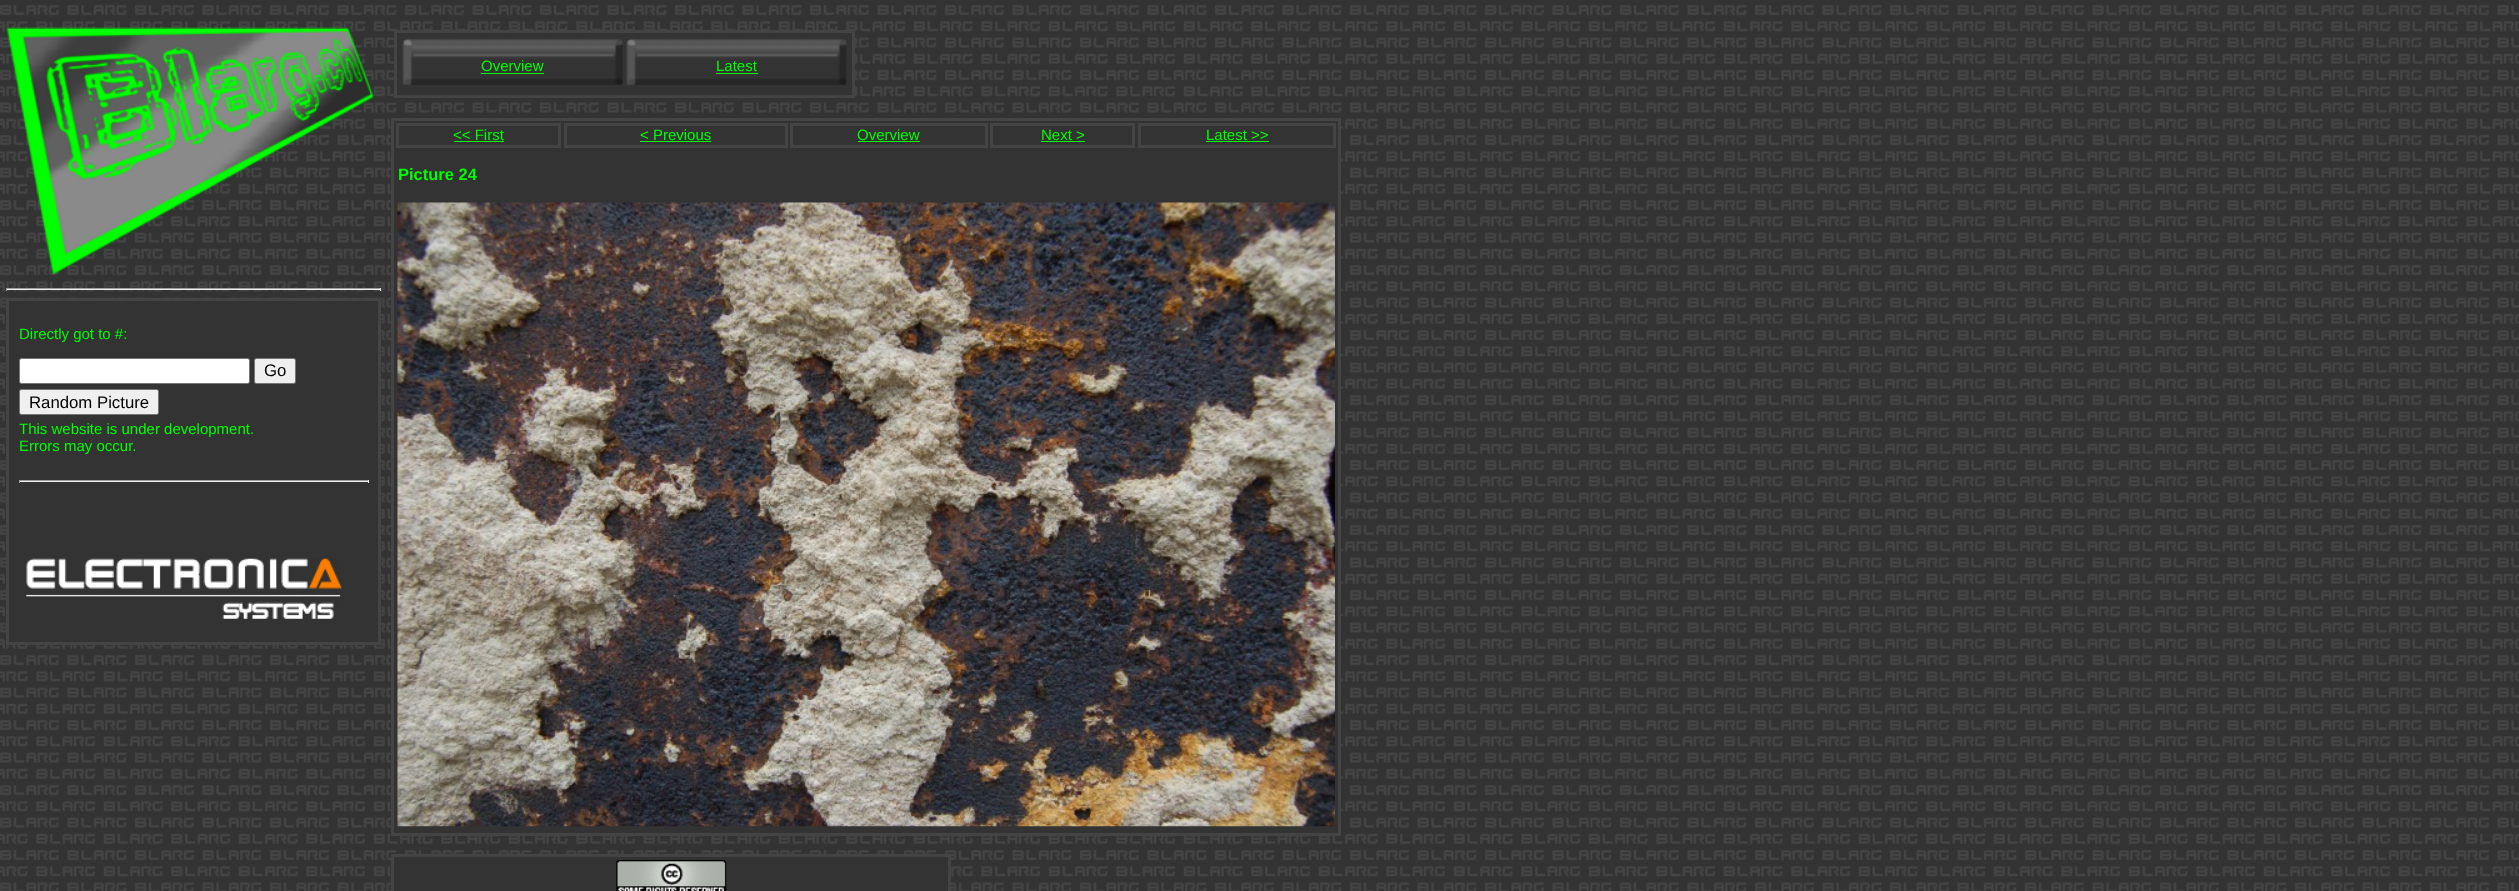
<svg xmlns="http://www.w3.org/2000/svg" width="2519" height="891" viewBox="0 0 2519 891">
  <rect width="100%" height="100%" fill="#333"/>
  <image x="0" y="5" width="2519" height="886" href="img/1.png"/>
  <path d="M397 37h455v58H397z" fill="#333"/>
  <path d="M395.5 31.5h458v65H395.5z" fill="none" stroke="#444" stroke-width="3"/>
  <image x="402" y="38" width="221" height="47" href="img/2.png"/>
  <path d="M481 73h63v1H481z" fill="#0f0"/>
  <image x="626" y="38" width="221" height="47" href="img/3.png"/>
  <path d="M716 73h42v1H716z" fill="#0f0"/>
  <path d="M394 121h944v707H394z" fill="#333"/>
  <path d="M392.5 119.5h947v715H392.5z" fill="none" stroke="#444" stroke-width="3"/>
  <path d="M397.5 124.5h162v22H397.5z" fill="none" stroke="#444" stroke-width="3"/>
  <path d="M454 141h50v1H454z" fill="#0f0"/>
  <path d="M565.5 124.5h221v22H565.5z" fill="none" stroke="#444" stroke-width="3"/>
  <path d="M640 141h71v1H640z" fill="#0f0"/>
  <path d="M791.5 124.5h195v22H791.5z" fill="none" stroke="#444" stroke-width="3"/>
  <path d="M858 141h62v1H858z" fill="#0f0"/>
  <path d="M991.5 124.5h142v22H991.5z" fill="none" stroke="#444" stroke-width="3"/>
  <path d="M1041 141h44v1H1041z" fill="#0f0"/>
  <path d="M1139.5 124.5h195v22H1139.5z" fill="none" stroke="#444" stroke-width="3"/>
  <path d="M1206 141h63v1H1206z" fill="#0f0"/>
  <image x="397" y="202" width="938" height="625" href="img/4.png"/>
  <image x="6" y="27" width="368" height="248" href="img/5.png"/>
  <path d="M6 288h375v1H6z" fill="#9f9f9f"/>
  <path d="M380 288h1v3H380z" fill="#eee"/>
  <path d="M6 289h375v1H6z" fill="#eee"/>
  <path d="M6 288h1v3H6z" fill="#9f9f9f"/>
  <path d="M7.5 299.5h372v344H7.5z" fill="#333" stroke="#444" stroke-width="3"/>
  <rect x="19.5" y="358.5" width="230" height="25" rx="2" fill="#fff" stroke="#767676"/>
  <rect x="254.5" y="358.5" width="41" height="25" rx="2" fill="#efefef" stroke="#767676"/>
  <rect x="19.5" y="389.5" width="139" height="25" rx="2" fill="#efefef" stroke="#767676"/>
  <path d="M19 480h350v1H19z" fill="#9f9f9f"/>
  <path d="M368 480h1v3H368z" fill="#eee"/>
  <path d="M19 481h350v1H19z" fill="#eee"/>
  <path d="M19 480h1v3H19z" fill="#9f9f9f"/>
  <image x="26" y="558" width="316" height="61" href="img/6.png"/>
  <path d="M392.5 855.5h557v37H392.5z" fill="#333" stroke="#444" stroke-width="3"/>
  <image x="616" y="860" width="111" height="31" href="img/7.png"/>
  <g font-family="Liberation Sans" font-size="15" fill="#0f0">
    <text x="481" y="71">Overview</text>
    <text x="716" y="71">Latest</text>
    <text x="453" y="140">&lt;&lt; First</text>
    <text x="640" y="140">&lt; Previous</text>
    <text x="857" y="140">Overview</text>
    <text x="1041" y="140">Next &gt;</text>
    <text x="1206" y="140">Latest &gt;&gt;</text>
  </g>
  <text x="398" y="180" font-family="Liberation Sans" font-size="16.5" font-weight="bold" fill="#0f0">Picture 24</text>
  <text x="19" y="339" font-family="Liberation Sans" font-size="15" fill="#0f0">Directly got to #:</text>
  <g font-family="Liberation Sans" font-size="16.75" fill="#000">
    <text x="264" y="376">Go</text>
    <text x="29" y="408">Random Picture</text>
  </g>
  <g font-family="Liberation Sans" font-size="15" fill="#0f0">
    <text x="19" y="434">This website is under development.</text>
    <text x="19" y="451">Errors may occur.</text>
  </g>
</svg>
